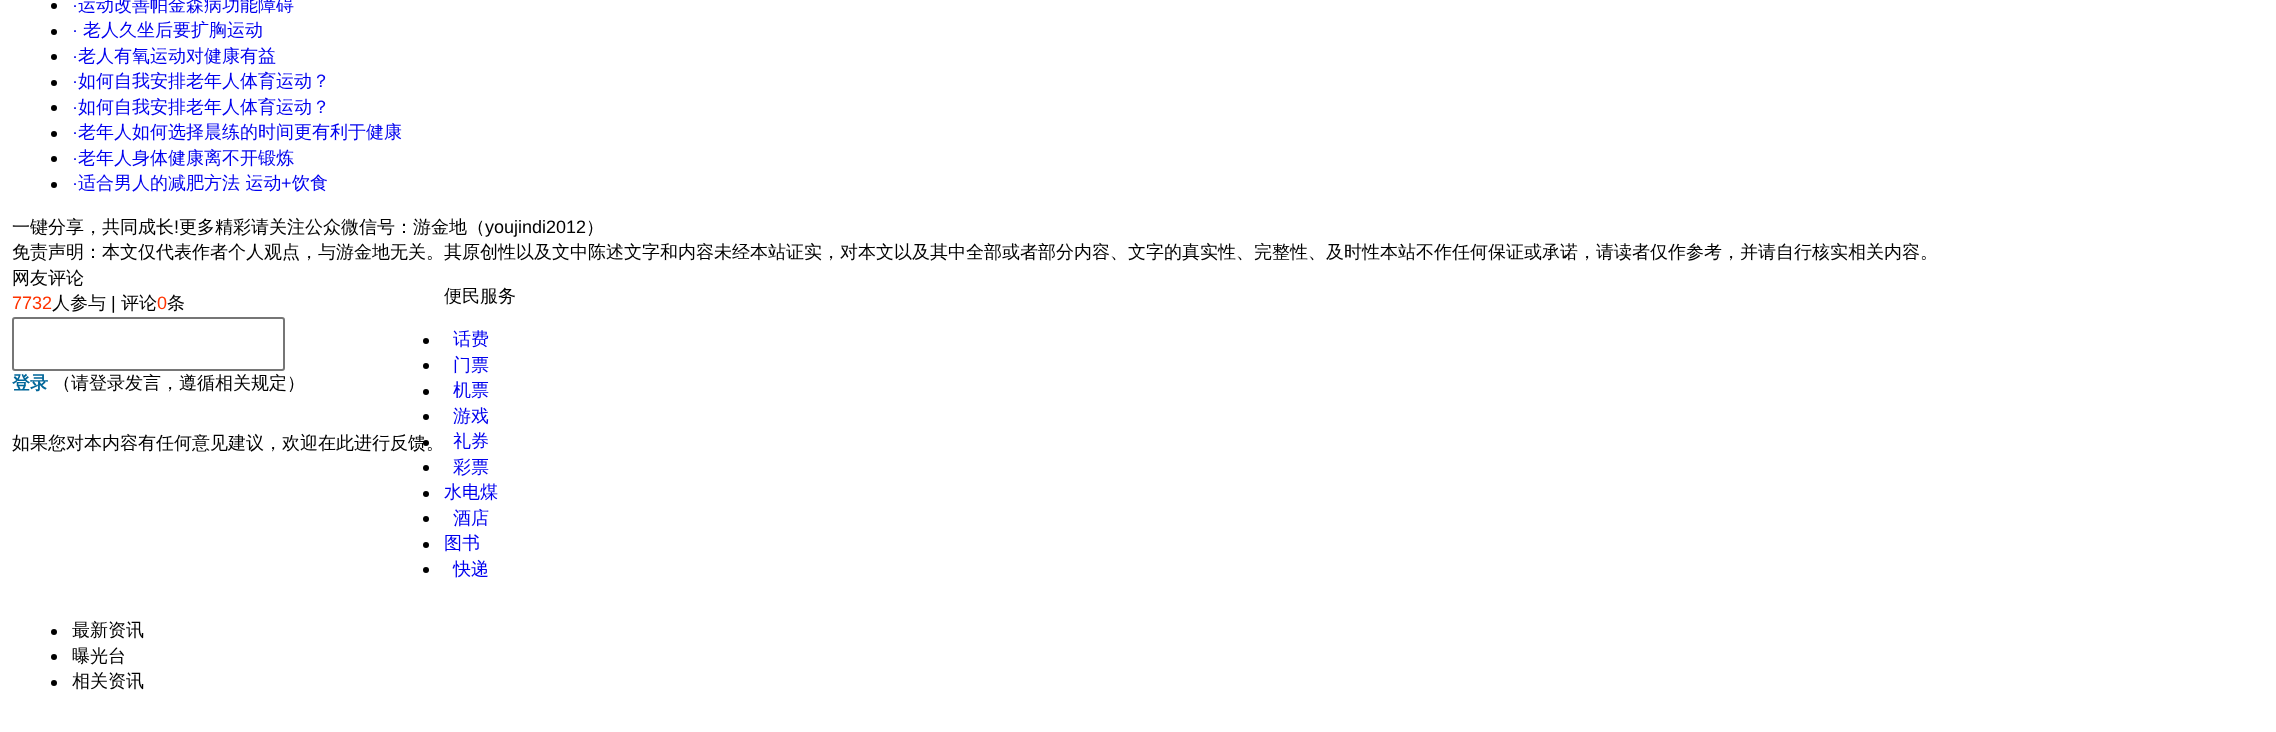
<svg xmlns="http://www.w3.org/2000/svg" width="2276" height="732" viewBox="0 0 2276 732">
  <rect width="100%" height="100%" fill="#fff"/>
  <circle cx="54" cy="6" r="3" fill="#000"/>
  <circle cx="54" cy="32" r="3" fill="#000"/>
  <circle cx="54" cy="57" r="3" fill="#000"/>
  <circle cx="54" cy="83" r="3" fill="#000"/>
  <circle cx="54" cy="108" r="3" fill="#000"/>
  <circle cx="54" cy="134" r="3" fill="#000"/>
  <circle cx="54" cy="159" r="3" fill="#000"/>
  <circle cx="54" cy="185" r="3" fill="#000"/>
  <rect x="13" y="318" width="271" height="52" rx="2" fill="none" stroke="#767676" stroke-width="2"/>
  <circle cx="426" cy="341" r="3" fill="#000"/>
  <circle cx="426" cy="366" r="3" fill="#000"/>
  <circle cx="426" cy="392" r="3" fill="#000"/>
  <circle cx="426" cy="417" r="3" fill="#000"/>
  <circle cx="426" cy="443" r="3" fill="#000"/>
  <circle cx="426" cy="468" r="3" fill="#000"/>
  <circle cx="426" cy="494" r="3" fill="#000"/>
  <circle cx="426" cy="519" r="3" fill="#000"/>
  <circle cx="426" cy="545" r="3" fill="#000"/>
  <circle cx="426" cy="570" r="3" fill="#000"/>
  <circle cx="54" cy="632" r="3" fill="#000"/>
  <circle cx="54" cy="657" r="3" fill="#000"/>
  <circle cx="54" cy="683" r="3" fill="#000"/>
  <text x="72" y="11" font-family="Liberation Sans" font-size="18" fill="#00e">·</text>
  <text x="78" y="11" font-family="WenQuanYi Zen Hei" font-size="18" font-weight="500" fill="#00e">运动改善帕金森病功能障碍</text>
  <text x="72" y="36" font-family="Liberation Sans" font-size="18" fill="#00e">·</text>
  <text x="83" y="36" font-family="WenQuanYi Zen Hei" font-size="18" font-weight="500" fill="#00e">老人久坐后要扩胸运动</text>
  <text x="72" y="62" font-family="Liberation Sans" font-size="18" fill="#00e">·</text>
  <text x="78" y="62" font-family="WenQuanYi Zen Hei" font-size="18" font-weight="500" fill="#00e">老人有氧运动对健康有益</text>
  <text x="72" y="87" font-family="Liberation Sans" font-size="18" fill="#00e">·</text>
  <text x="78" y="87" font-family="WenQuanYi Zen Hei" font-size="18" font-weight="500" fill="#00e">如何自我安排老年人体育运动？</text>
  <text x="72" y="113" font-family="Liberation Sans" font-size="18" fill="#00e">·</text>
  <text x="78" y="113" font-family="WenQuanYi Zen Hei" font-size="18" font-weight="500" fill="#00e">如何自我安排老年人体育运动？</text>
  <text x="72" y="138" font-family="Liberation Sans" font-size="18" fill="#00e">·</text>
  <text x="78" y="138" font-family="WenQuanYi Zen Hei" font-size="18" font-weight="500" fill="#00e">老年人如何选择晨练的时间更有利于健康</text>
  <text x="72" y="164" font-family="Liberation Sans" font-size="18" fill="#00e">·</text>
  <text x="78" y="164" font-family="WenQuanYi Zen Hei" font-size="18" font-weight="500" fill="#00e">老年人身体健康离不开锻炼</text>
  <text x="72" y="189" font-family="Liberation Sans" font-size="18" fill="#00e">·</text>
  <text x="78" y="189" font-family="WenQuanYi Zen Hei" font-size="18" font-weight="500" fill="#00e">适合男人的减肥方法 运动</text>
  <text x="281" y="189" font-family="Liberation Sans" font-size="18" fill="#00e">+</text>
  <text x="292" y="189" font-family="WenQuanYi Zen Hei" font-size="18" font-weight="500" fill="#00e">饮食</text>
  <text x="12" y="233" font-family="WenQuanYi Zen Hei" font-size="18" font-weight="500" fill="#000">一键分享，共同成长</text>
  <text x="174" y="233" font-family="Liberation Sans" font-size="18" fill="#000">!</text>
  <text x="179" y="233" font-family="WenQuanYi Zen Hei" font-size="18" font-weight="500" fill="#000">更多精彩请关注公众微信号：游金地（</text>
  <text x="485" y="233" font-family="Liberation Sans" font-size="18" fill="#000">youjindi2012</text>
  <g font-family="WenQuanYi Zen Hei" font-size="18" font-weight="500" fill="#000">
    <text x="586" y="233">）</text>
    <text x="12" y="258">免责声明：本文仅代表作者个人观点，与游金地无关。其原创性以及文中陈述文字和内容未经本站证实，对本文以及其中全部或者部分内容、文字的真实性、完整性、及时性本站不作任何保证或承诺，请读者仅作参考，并请自行核实相关内容。</text>
    <text x="12" y="284">网友评论</text>
  </g>
  <text x="12" y="309" font-family="Liberation Sans" font-size="18" fill="#f30">7732</text>
  <text x="52" y="309" font-family="WenQuanYi Zen Hei" font-size="18" font-weight="500" fill="#000">人参与</text>
  <text x="111" y="309" font-family="Liberation Sans" font-size="18" fill="#000">|</text>
  <text x="121" y="309" font-family="WenQuanYi Zen Hei" font-size="18" font-weight="500" fill="#000">评论</text>
  <text x="157" y="309" font-family="Liberation Sans" font-size="18" fill="#f30">0</text>
  <text x="167" y="309" font-family="WenQuanYi Zen Hei" font-size="18" font-weight="500" fill="#000">条</text>
  <text x="12" y="389" font-family="WenQuanYi Zen Hei" font-size="18" font-weight="bold" fill="#069">登录</text>
  <g font-family="WenQuanYi Zen Hei" font-size="18" font-weight="500" fill="#000">
    <text x="53" y="389">（请登录发言，遵循相关规定）</text>
    <text x="12" y="449">如果您对本内容有任何意见建议，欢迎在此进行反馈。</text>
    <text x="444" y="302">便民服务</text>
  </g>
  <g font-family="WenQuanYi Zen Hei" font-size="18" font-weight="500" fill="#00e">
    <text x="453" y="345">话费</text>
    <text x="453" y="371">门票</text>
    <text x="453" y="396">机票</text>
    <text x="453" y="422">游戏</text>
    <text x="453" y="447">礼券</text>
    <text x="453" y="473">彩票</text>
    <text x="444" y="498">水电煤</text>
    <text x="453" y="524">酒店</text>
    <text x="444" y="549">图书</text>
    <text x="453" y="575">快递</text>
  </g>
  <g font-family="WenQuanYi Zen Hei" font-size="18" font-weight="500" fill="#000">
    <text x="72" y="636">最新资讯</text>
    <text x="72" y="662">曝光台</text>
    <text x="72" y="687">相关资讯</text>
  </g>
</svg>
